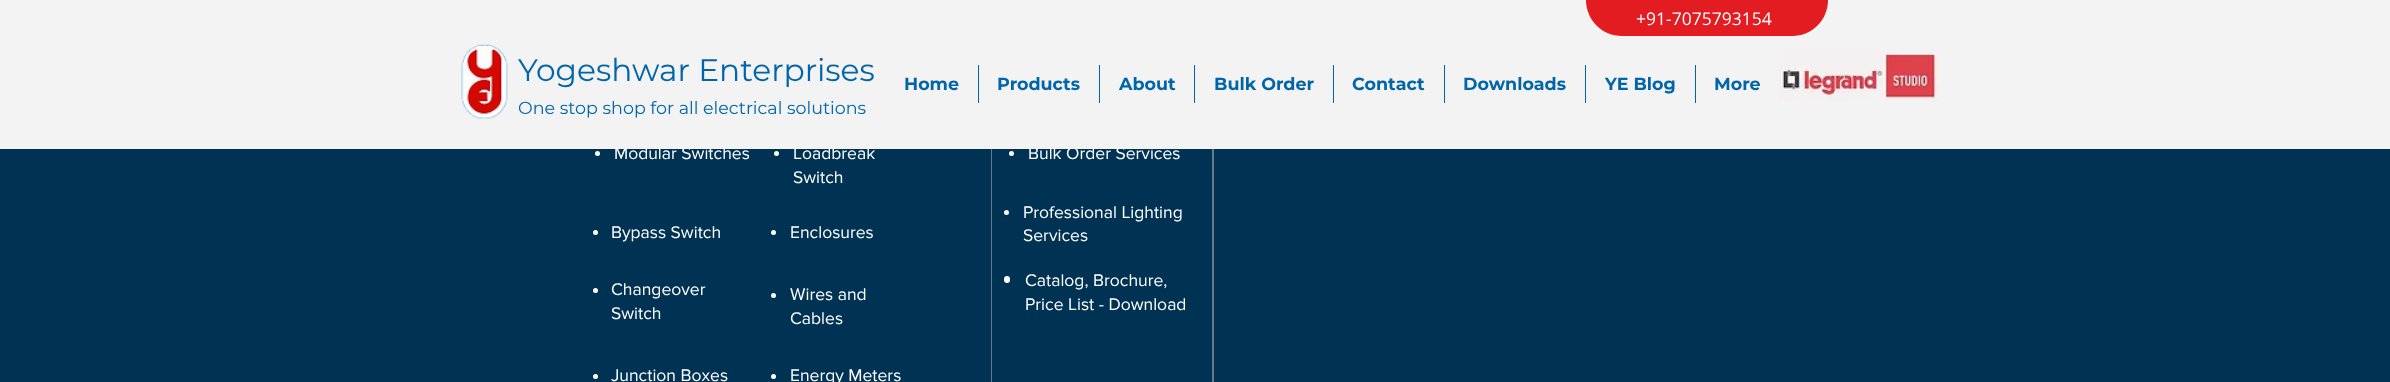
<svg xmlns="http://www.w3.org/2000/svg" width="2390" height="382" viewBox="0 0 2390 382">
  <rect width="100%" height="100%" fill="#003254"/>
  <circle cx="597.5" cy="153.5" r="2.5" fill="#fff"/>
  <circle cx="776.5" cy="153.5" r="2.5" fill="#fff"/>
  <circle cx="595.5" cy="232.5" r="2.5" fill="#fff"/>
  <circle cx="773.5" cy="232.5" r="2.5" fill="#fff"/>
  <circle cx="595.5" cy="290.5" r="2.5" fill="#fff"/>
  <circle cx="773.5" cy="295.5" r="2.5" fill="#fff"/>
  <circle cx="595.5" cy="376.5" r="2.5" fill="#fff"/>
  <circle cx="773.5" cy="376.5" r="2.5" fill="#fff"/>
  <path d="M991 149h1v233H991z" fill="#667986"/>
  <circle cx="1011.5" cy="153.5" r="2.5" fill="#fff"/>
  <path d="M1212 149h2v233H1212z" fill="#667986"/>
  <circle cx="1006.5" cy="212.5" r="2.5" fill="#fff"/>
  <rect x="1004" y="276" width="6" height="7" rx="3" fill="#fff"/>
  <g font-family="'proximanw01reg'" font-size="17.5" fill="#fff">
    <text x="614" y="159">Modular Switches</text>
    <text x="793" y="159">Loadbreak</text>
    <text x="793" y="183">Switch</text>
    <text x="611" y="238">Bypass Switch</text>
    <text x="790" y="238">Enclosures</text>
    <text x="611" y="295">Changeover</text>
    <text x="611" y="319">Switch</text>
    <text x="790" y="300">Wires and</text>
    <text x="790" y="324">Cables</text>
    <text x="611" y="381">Junction Boxes</text>
    <text x="790" y="381">Energy Meters</text>
    <text x="1028" y="159">Bulk Order Services</text>
  </g>
  <path d="M0 0h2390v149H0z" fill="#f3f3f3"/>
  <image x="1779" y="47" width="160" height="54" href="img/2.png"/>
  <text x="518" y="114" font-family="Montserrat" font-size="17.5" fill="#0065a9">One stop shop for all electrical solutions</text>
  <text x="518" y="81" font-family="Montserrat" font-size="31.25" fill="#0065a9">Yogeshwar Enterprises</text>
  <text x="1714" y="90" font-family="Montserrat" font-size="17.5" font-weight="bold" fill="#0065a9">More</text>
  <path d="M1695 65h1v38H1695z" fill="#0065a9"/>
  <text x="1605" y="90" font-family="Montserrat" font-size="17.5" font-weight="bold" fill="#0065a9">YE Blog</text>
  <path d="M1585 65h1v38H1585z" fill="#0065a9"/>
  <text x="1463" y="90" font-family="Montserrat" font-size="17.5" font-weight="bold" fill="#0065a9">Downloads</text>
  <path d="M1444 65h1v38H1444z" fill="#0065a9"/>
  <text x="1352" y="90" font-family="Montserrat" font-size="17.5" font-weight="bold" fill="#0065a9">Contact</text>
  <path d="M1333 65h1v38H1333z" fill="#0065a9"/>
  <text x="1214" y="90" font-family="Montserrat" font-size="17.5" font-weight="bold" fill="#0065a9">Bulk Order</text>
  <path d="M1194 65h1v38H1194z" fill="#0065a9"/>
  <text x="1119" y="90" font-family="Montserrat" font-size="17.5" font-weight="bold" fill="#0065a9">About</text>
  <path d="M1099 65h1v38H1099z" fill="#0065a9"/>
  <text x="997" y="90" font-family="Montserrat" font-size="17.5" font-weight="bold" fill="#0065a9">Products</text>
  <path d="M978 65h1v38H978z" fill="#0065a9"/>
  <text x="904" y="90" font-family="Montserrat" font-size="17.5" font-weight="bold" fill="#0065a9">Home</text>
  <image x="461" y="44" width="47" height="75" href="img/1.png"/>
  <path d="M1586 0H1828C1828 20 1812 36 1792 36H1622C1602 36 1586 20 1586 0Z" fill="#e21c21"/>
  <text x="1636" y="25" font-family="Open Sans" font-size="17.5" fill="#fff">+91-7075793154</text>
  <g font-family="'proximanw01reg'" font-size="17.5" fill="#fff">
    <text x="1023" y="218">Professional Lighting</text>
    <text x="1023" y="241">Services</text>
    <text x="1025" y="286">Catalog, Brochure,</text>
    <text x="1025" y="310">Price List - Download</text>
  </g>
</svg>
